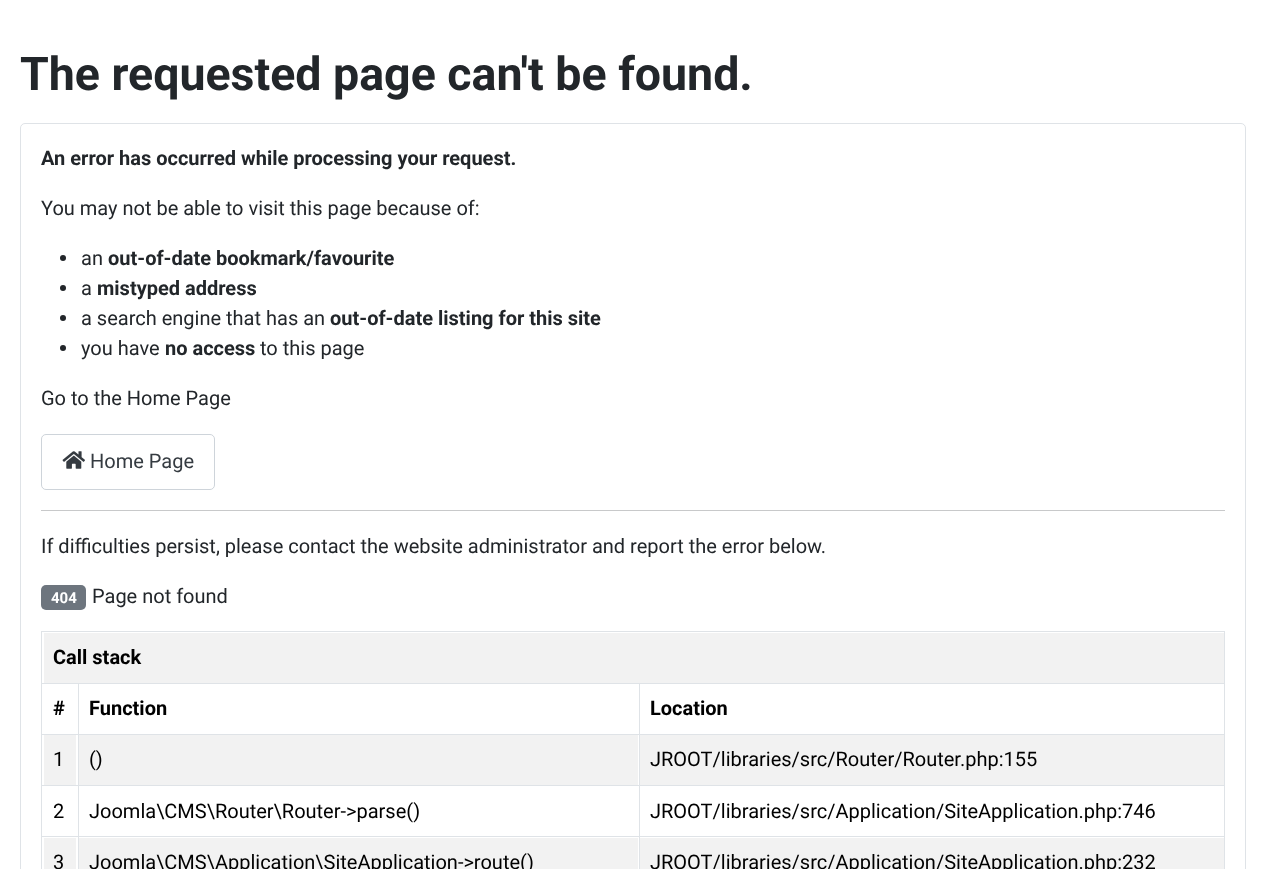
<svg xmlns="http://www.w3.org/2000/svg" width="1266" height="869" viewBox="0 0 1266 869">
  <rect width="100%" height="100%" fill="#fff"/>
  <rect x="20.5" y="123.5" width="1225" height="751" rx="4.5" fill="none" stroke="#dfe3e7"/>
  <circle cx="63" cy="258" r="3" fill="#22262a"/>
  <circle cx="63" cy="288" r="3" fill="#22262a"/>
  <circle cx="63" cy="318" r="3" fill="#22262a"/>
  <circle cx="63" cy="348" r="3" fill="#22262a"/>
  <rect x="41.5" y="434.5" width="173" height="55" rx="4.5" fill="none" stroke="#ced4da"/>
  <image x="62" y="451" width="23" height="18" href="img/1.png"/>
  <path d="M41 510h1184v1H41z" fill="#c8c9ca"/>
  <rect x="41" y="585" width="45" height="25" rx="5" fill="#6d757e"/>
  <path d="M41 631h1184v1H41z" fill="#dfe3e7"/>
  <path d="M44 633h1180v50H44z" fill="#f2f2f2"/>
  <path d="M41 683h1184v1H41z" fill="#dfe3e7"/>
  <path d="M41 734h1184v1H41z" fill="#dfe3e7"/>
  <path d="M44 735h32v50H44z" fill="#f2f2f2"/>
  <path d="M79 735h559v50H79z" fill="#f2f2f2"/>
  <path d="M640 735h584v50H640z" fill="#f2f2f2"/>
  <path d="M41 785h1184v1H41z" fill="#dfe3e7"/>
  <path d="M41 836h1184v1H41z" fill="#dfe3e7"/>
  <path d="M44 838h32v31H44z" fill="#f2f2f2"/>
  <path d="M41 631h1v238H41z" fill="#dfe3e7"/>
  <path d="M79 838h559v31H79z" fill="#f2f2f2"/>
  <path d="M78 683h1v186H78z" fill="#dfe3e7"/>
  <path d="M640 838h584v31H640z" fill="#f2f2f2"/>
  <path d="M1224 631h1v238H1224z" fill="#dfe3e7"/>
  <path d="M639 683h1v186H639z" fill="#dfe3e7"/>
  <text x="20" y="90" font-family="Roboto" font-size="46.5" font-weight="bold" fill="#22262a">The requested page can't be found.</text>
  <text x="41" y="165" font-family="Roboto" font-size="20" font-weight="bold" fill="#22262a">An error has occurred while processing your request.</text>
  <g font-family="Roboto" font-size="20" fill="#22262a">
    <text x="41" y="215">You may not be able to visit this page because of:</text>
    <text x="81" y="265">an</text>
  </g>
  <text x="108" y="265" font-family="Roboto" font-size="20" font-weight="bold" fill="#22262a">out-of-date bookmark/favourite</text>
  <text x="81" y="295" font-family="Roboto" font-size="20" fill="#22262a">a</text>
  <text x="97" y="295" font-family="Roboto" font-size="20" font-weight="bold" fill="#22262a">mistyped address</text>
  <text x="81" y="325" font-family="Roboto" font-size="20" fill="#22262a">a search engine that has an</text>
  <text x="330" y="325" font-family="Roboto" font-size="20" font-weight="bold" fill="#22262a">out-of-date listing for this site</text>
  <text x="81" y="355" font-family="Roboto" font-size="20" fill="#22262a">you have</text>
  <text x="165" y="355" font-family="Roboto" font-size="20" font-weight="bold" fill="#22262a">no access</text>
  <g font-family="Roboto" font-size="20" fill="#22262a">
    <text x="260" y="355">to this page</text>
    <text x="41" y="405">Go to the Home Page</text>
  </g>
  <text x="90" y="468" font-family="Roboto" font-size="20" fill="#353b41">Home Page</text>
  <text x="41" y="553" font-family="Roboto" font-size="20" fill="#22262a">If difficulties persist, please contact the website administrator and report the error below.</text>
  <text x="51" y="603" font-family="Roboto" font-size="15" font-weight="bold" fill="#fff">404</text>
  <text x="92" y="603" font-family="Roboto" font-size="20" fill="#22262a">Page not found</text>
  <g font-family="Roboto" font-size="20" font-weight="bold" fill="#000">
    <text x="53" y="664">Call stack</text>
    <text x="53" y="715">#</text>
    <text x="89" y="715">Function</text>
    <text x="650" y="715">Location</text>
  </g>
  <g font-family="Roboto" font-size="20" fill="#000">
    <text x="53" y="766">1</text>
    <text x="89" y="766">()</text>
    <text x="650" y="766">JROOT/libraries/src/Router/Router.php:155</text>
    <text x="53" y="818">2</text>
    <text x="89" y="818">Joomla\CMS\Router\Router-&gt;parse()</text>
    <text x="650" y="818">JROOT/libraries/src/Application/SiteApplication.php:746</text>
    <text x="53" y="869">3</text>
    <text x="89" y="869">Joomla\CMS\Application\SiteApplication-&gt;route()</text>
    <text x="650" y="869">JROOT/libraries/src/Application/SiteApplication.php:232</text>
  </g>
</svg>
